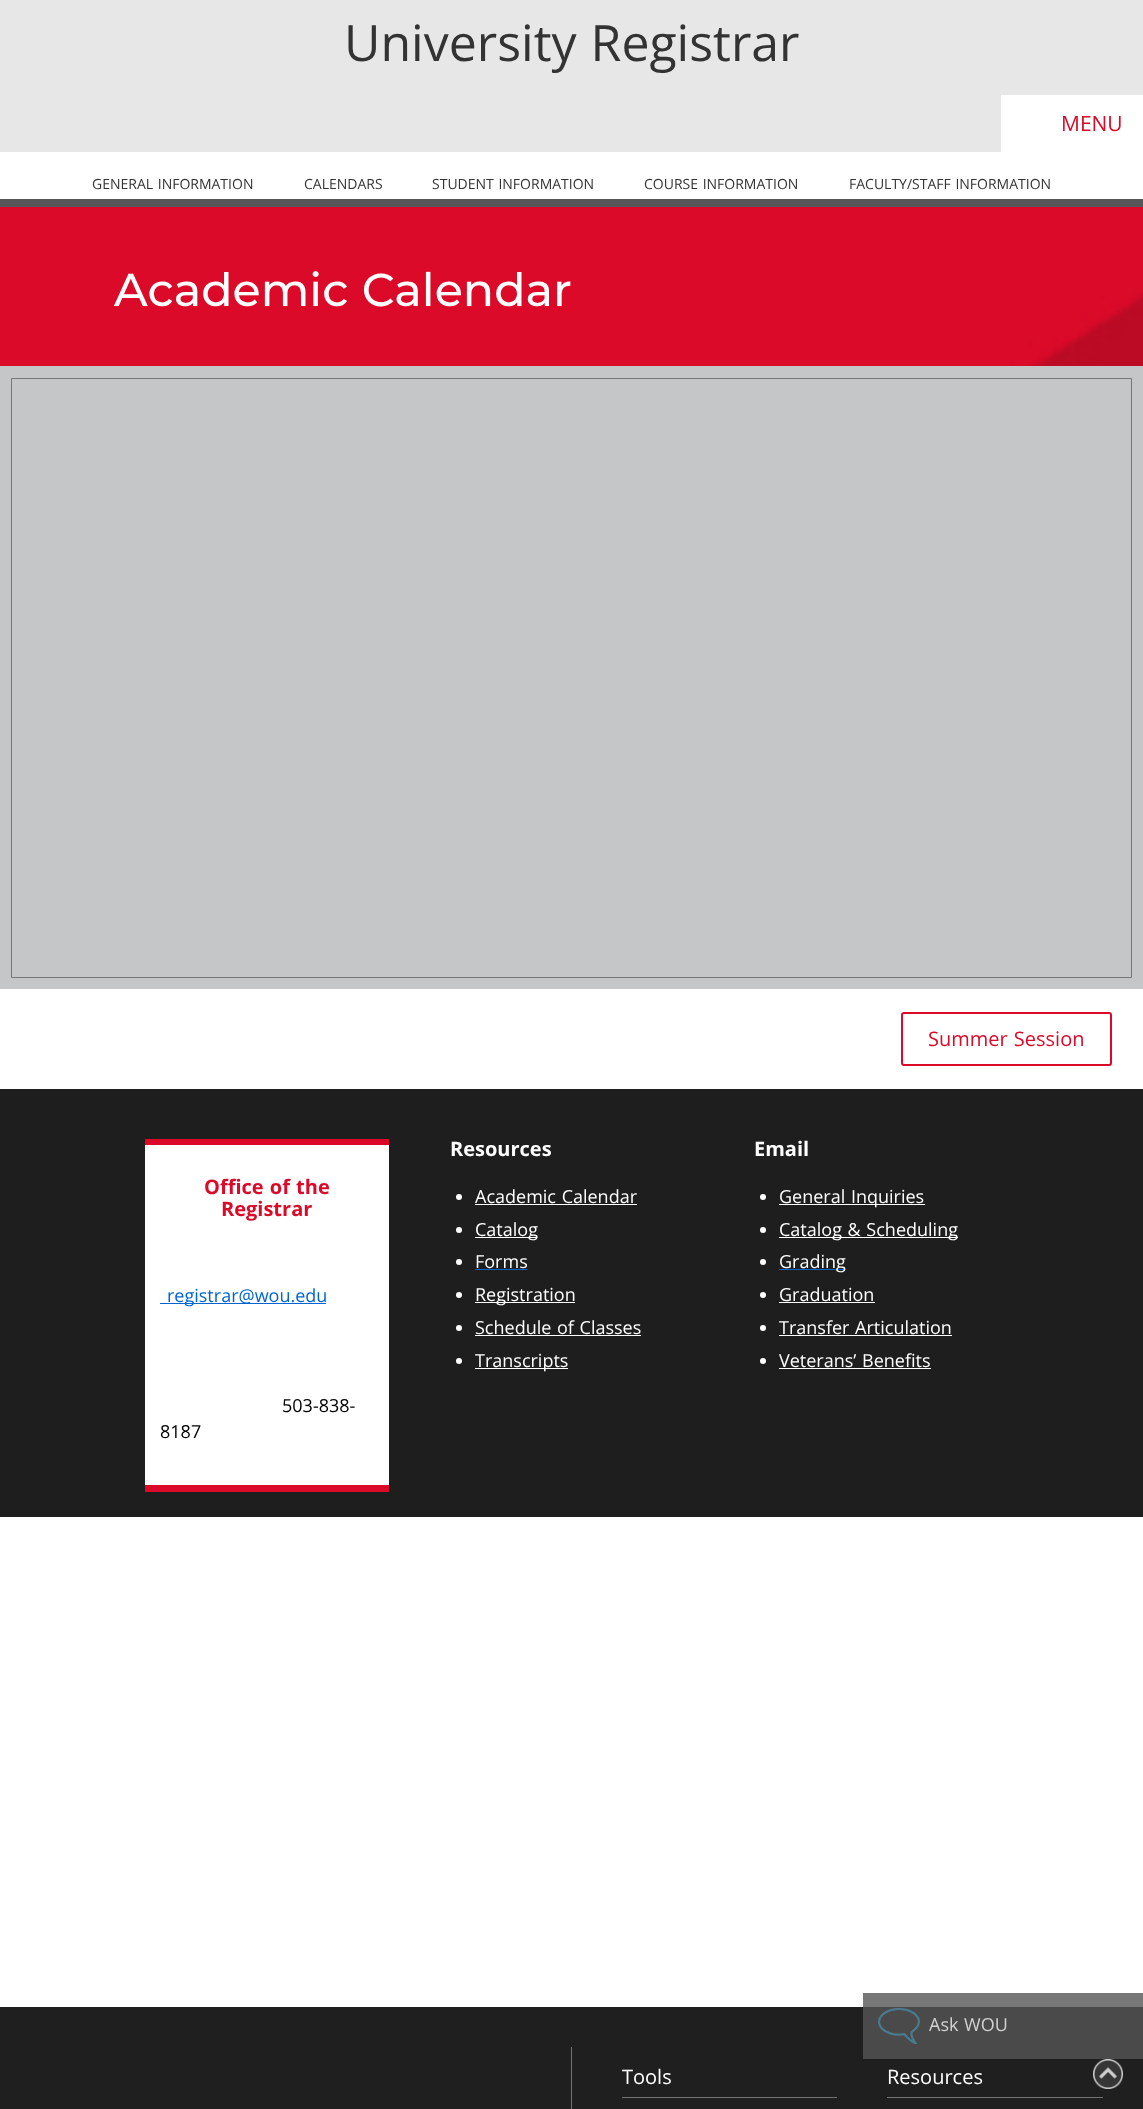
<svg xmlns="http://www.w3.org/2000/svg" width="1143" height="2109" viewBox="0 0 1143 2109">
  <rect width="100%" height="100%" fill="#fff"/>
  <path d="M863 1993h280v14H863z" fill="#777"/>
  <path d="M0 0h1143v152H0z" fill="#e7e7e7"/>
  <path d="M1001 95h142v57H1001z" fill="#fff"/>
  <path d="M0 199h1143v8H0z" fill="#575759"/>
  <image x="0" y="207" width="1143" height="159" href="img/1.png"/>
  <path d="M0 366h1143v623H0z" fill="#c4c6c8"/>
  <path d="M11.5 378.5h1120v599H11.5z" fill="none" stroke="#777"/>
  <rect x="902" y="1013" width="209" height="52" rx="2" fill="none" stroke="#db0a29" stroke-width="2"/>
  <path d="M0 1089h1143v428H0z" fill="#1e1e1e"/>
  <path d="M145 1145h244v340H145z" fill="#fff"/>
  <path d="M145 1139h244v6H145z" fill="#db0a29"/>
  <path d="M145 1485h244v7H145z" fill="#db0a29"/>
  <path d="M160 1303h166v1H160z" fill="#0064d1"/>
  <circle cx="459" cy="1197" r="3" fill="#fff"/>
  <path d="M475 1204h162v1H475z" fill="#fff"/>
  <circle cx="459" cy="1230" r="3" fill="#fff"/>
  <path d="M475 1237h62v1H475z" fill="#fff"/>
  <circle cx="459" cy="1262" r="3" fill="#fff"/>
  <path d="M475 1269h52v1H475z" fill="#0064d1"/>
  <circle cx="459" cy="1295" r="3" fill="#fff"/>
  <path d="M475 1302h100v1H475z" fill="#fff"/>
  <circle cx="459" cy="1328" r="3" fill="#fff"/>
  <path d="M475 1335h166v1H475z" fill="#fff"/>
  <circle cx="459" cy="1361" r="3" fill="#fff"/>
  <path d="M475 1368h93v1H475z" fill="#fff"/>
  <circle cx="763" cy="1197" r="3" fill="#fff"/>
  <path d="M779 1204h146v1H779z" fill="#fff"/>
  <circle cx="763" cy="1230" r="3" fill="#fff"/>
  <path d="M779 1237h179v1H779z" fill="#fff"/>
  <circle cx="763" cy="1262" r="3" fill="#fff"/>
  <path d="M779 1269h67v1H779z" fill="#0064d1"/>
  <circle cx="763" cy="1295" r="3" fill="#fff"/>
  <path d="M779 1302h96v1H779z" fill="#fff"/>
  <circle cx="763" cy="1328" r="3" fill="#fff"/>
  <path d="M779 1335h173v1H779z" fill="#fff"/>
  <circle cx="763" cy="1361" r="3" fill="#fff"/>
  <path d="M779 1368h152v1H779z" fill="#fff"/>
  <path d="M0 2007h1143v102H0z" fill="#1f1f1f"/>
  <path d="M863 2007h280v52H863z" fill="#4a4a4a"/>
  <image x="878" y="2008" width="42" height="36" href="img/2.png"/>
  <path d="M571 2047h1v62H571z" fill="#727272"/>
  <path d="M622 2097h215v1H622z" fill="#727272"/>
  <path d="M887 2097h216v1H887z" fill="#727272"/>
  <image x="1093" y="2059" width="30" height="30" href="img/3.png"/>
  <text x="344" y="61" word-spacing="1" font-family="Open Sans" font-size="50" fill="#333">University Registrar</text>
  <text x="1061" y="131" font-family="Open Sans" font-size="21" fill="#db0a29">MENU</text>
  <g font-family="Open Sans" font-size="14" fill="#333">
    <text x="92" y="189" word-spacing="1">GENERAL INFORMATION</text>
    <text x="304" y="189">CALENDARS</text>
    <text x="432" y="189" word-spacing="1">STUDENT INFORMATION</text>
    <text x="644" y="189" word-spacing="1">COURSE INFORMATION</text>
    <text x="849" y="189" word-spacing="1">FACULTY/STAFF INFORMATION</text>
  </g>
  <text x="114" y="306" word-spacing="1" font-family="Montserrat" font-size="46" font-weight="500" fill="#fff">Academic Calendar</text>
  <text x="928" y="1046" word-spacing="1" font-family="Open Sans" font-size="20" fill="#db0a29">Summer Session</text>
  <g font-family="Open Sans" font-size="20" font-weight="bold" fill="#db0a29">
    <text x="204" y="1194" word-spacing="1">Office of the</text>
    <text x="221" y="1216">Registrar</text>
  </g>
  <text x="167" y="1302" font-family="Open Sans" font-size="18" fill="#0064d1">registrar@wou.edu</text>
  <g font-family="Open Sans" font-size="18" fill="#000">
    <text x="282" y="1412">503-838-</text>
    <text x="160" y="1438">8187</text>
  </g>
  <text x="450" y="1156" font-family="Open Sans" font-size="20" font-weight="bold" fill="#fff">Resources</text>
  <g font-family="Open Sans" font-size="18" fill="#fff">
    <text x="475" y="1203" word-spacing="1">Academic Calendar</text>
    <text x="475" y="1236">Catalog</text>
    <text x="475" y="1268">Forms</text>
    <text x="475" y="1301">Registration</text>
    <text x="475" y="1334" word-spacing="1">Schedule of Classes</text>
    <text x="475" y="1367">Transcripts</text>
  </g>
  <text x="754" y="1156" font-family="Open Sans" font-size="20" font-weight="bold" fill="#fff">Email</text>
  <g font-family="Open Sans" font-size="18" fill="#fff">
    <text x="779" y="1203" word-spacing="1">General Inquiries</text>
    <text x="779" y="1236" word-spacing="1">Catalog &amp; Scheduling</text>
    <text x="779" y="1268">Grading</text>
    <text x="779" y="1301">Graduation</text>
    <text x="779" y="1334" word-spacing="1">Transfer Articulation</text>
    <text x="779" y="1367" word-spacing="1">Veterans’ Benefits</text>
  </g>
  <text x="929" y="2031" word-spacing="1" font-family="Open Sans" font-size="18" fill="#d2d2d2">Ask WOU</text>
  <g font-family="Open Sans" font-size="20" fill="#fff">
    <text x="622" y="2084">Tools</text>
    <text x="887" y="2084">Resources</text>
  </g>
</svg>
